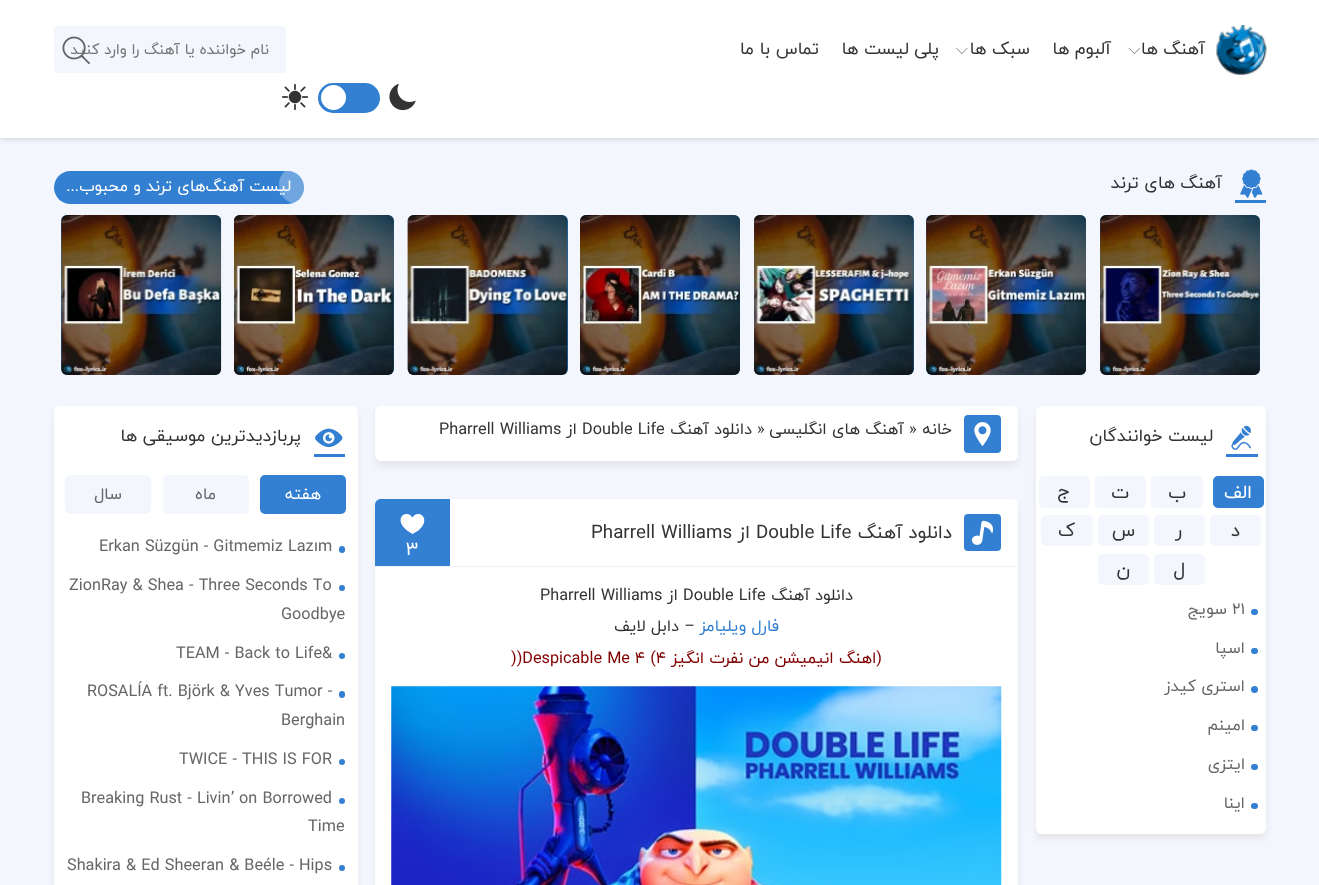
<svg xmlns="http://www.w3.org/2000/svg" width="1319" height="885" viewBox="0 0 1319 885">
  <defs>
    <clipPath id="clip1"><rect x="54" y="171" width="250" height="33" rx="16.5"/></clipPath>
  </defs>
  <rect width="100%" height="100%" fill="#f4f6fd"/>
  <path d="M0 0h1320v138H0z" fill="#00000033" filter="blur(3px)"/>
  <path d="M0 0h1319v138H0z" fill="#fff"/>
  <rect x="54" y="26" width="232" height="47" rx="4" fill="#f4f6fd"/>
  <image x="281" y="83" width="28" height="28" href="img/2.png"/>
  <rect x="318" y="83" width="62" height="30" rx="15" fill="#3380d2"/>
  <circle cx="333.5" cy="97.5" r="12.5" fill="#fff"/>
  <image x="389" y="83" width="27" height="28" href="img/3.png"/>
  <image x="956" y="48" width="12" height="6" href="img/4.png"/>
  <image x="1128" y="48" width="12" height="6" href="img/5.png"/>
  <image x="1216" y="25" width="51" height="50" href="img/6.png"/>
  <rect x="54" y="171" width="250" height="33" rx="16.5" fill="#3380d2"/>
  <path d="M1235 200h31v3H1235z" fill="#3380d2"/>
  <image x="1240" y="169" width="23" height="29" href="img/7.png"/>
  <rect x="61" y="215" width="160" height="160" rx="6" fill="#2266a5"/>
  <image x="61" y="215" width="161" height="160" href="img/8.png"/>
  <rect x="234" y="215" width="160" height="160" rx="6" fill="#2266a5"/>
  <image x="234" y="215" width="160" height="160" href="img/9.png"/>
  <rect x="408" y="215" width="160" height="160" rx="6" fill="#2266a5"/>
  <image x="407" y="215" width="161" height="160" href="img/10.png"/>
  <rect x="580" y="215" width="160" height="160" rx="6" fill="#2266a5"/>
  <image x="580" y="215" width="160" height="160" href="img/11.png"/>
  <rect x="754" y="215" width="160" height="160" rx="6" fill="#2266a5"/>
  <image x="754" y="215" width="160" height="160" href="img/12.png"/>
  <rect x="926" y="215" width="160" height="160" rx="6" fill="#2266a5"/>
  <image x="926" y="215" width="160" height="160" href="img/13.png"/>
  <rect x="1100" y="215" width="160" height="160" rx="6" fill="#2266a5"/>
  <image x="1100" y="215" width="160" height="160" href="img/14.png"/>
  <rect x="54" y="411" width="304" height="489" rx="6" fill="#c8c8c859" filter="blur(3px)"/>
  <rect x="54" y="406" width="304" height="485" rx="6" fill="#fff"/>
  <path d="M314 454h31v3H314z" fill="#3380d2"/>
  <image x="315" y="428" width="28" height="20" href="img/15.png"/>
  <rect x="65" y="475" width="86" height="39" rx="5" fill="#f4f6fd"/>
  <rect x="163" y="475" width="86" height="39" rx="5" fill="#f4f6fd"/>
  <rect x="260" y="475" width="86" height="39" rx="5" fill="#3380d2"/>
  <rect x="339" y="546" width="6" height="7" rx="3" fill="#3380d2"/>
  <circle cx="342" cy="588" r="3" fill="#3380d2"/>
  <circle cx="342" cy="656" r="3" fill="#3380d2"/>
  <rect x="339" y="691" width="6" height="7" rx="3" fill="#3380d2"/>
  <circle cx="342" cy="762" r="3" fill="#3380d2"/>
  <circle cx="342" cy="801" r="3" fill="#3380d2"/>
  <circle cx="342" cy="868" r="3" fill="#3380d2"/>
  <rect x="375" y="411" width="643" height="55" rx="6" fill="#c8c8c859" filter="blur(3px)"/>
  <rect x="375" y="406" width="643" height="55" rx="6" fill="#fff"/>
  <rect x="964" y="415" width="37" height="38" rx="4" fill="#3380d2"/>
  <image x="974" y="422" width="17" height="25" href="img/16.png"/>
  <rect x="375" y="504" width="643" height="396" rx="6" fill="#c8c8c859" filter="blur(3px)"/>
  <rect x="375" y="499" width="643" height="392" rx="6" fill="#fff"/>
  <path d="M375 566h643v1H375z" fill="#f2f2f2"/>
  <rect x="964" y="514" width="37" height="37" rx="4" fill="#3380d2"/>
  <image x="972" y="520" width="21" height="25" href="img/17.png"/>
  <path d="M381 499H450V566H375V505C375 501.5 377.5 499 381 499Z" fill="#3380d2"/>
  <path d="M412.5 517.5C417.5 508.5 432.5 518 418.5 530.5L412.5 534L407 530.5C392.5 518.5 406.5 508.5 412.5 517.5Z" fill="#fff"/>
  <image x="391" y="686" width="611" height="199" href="img/18.png"/>
  <rect x="1036" y="411" width="230" height="428" rx="6" fill="#c8c8c859" filter="blur(3px)"/>
  <rect x="1036" y="406" width="230" height="428" rx="6" fill="#fff"/>
  <path d="M1226 454h32v3H1226z" fill="#3380d2"/>
  <image x="1231" y="425" width="21" height="25" href="img/19.png"/>
  <rect x="1039" y="476" width="51" height="32" rx="5" fill="#f4f6fd"/>
  <rect x="1095" y="476" width="51" height="32" rx="5" fill="#f4f6fd"/>
  <rect x="1151" y="476" width="52" height="32" rx="5" fill="#f4f6fd"/>
  <rect x="1213" y="476" width="51" height="32" rx="5" fill="#3380d2"/>
  <rect x="1041" y="515" width="52" height="31" rx="5" fill="#f4f6fd"/>
  <rect x="1098" y="515" width="51" height="31" rx="5" fill="#f4f6fd"/>
  <rect x="1154" y="515" width="51" height="31" rx="5" fill="#f4f6fd"/>
  <rect x="1210" y="515" width="51" height="31" rx="5" fill="#f4f6fd"/>
  <rect x="1098" y="554" width="51" height="31" rx="5" fill="#f4f6fd"/>
  <rect x="1154" y="554" width="51" height="31" rx="5" fill="#f4f6fd"/>
  <rect x="1251" y="609" width="7" height="6" rx="3" fill="#3380d2"/>
  <rect x="1251" y="648" width="7" height="6" rx="3" fill="#3380d2"/>
  <circle cx="1254.5" cy="689.5" r="3.5" fill="#3380d2"/>
  <rect x="1251" y="725" width="7" height="6" rx="3" fill="#3380d2"/>
  <rect x="1251" y="764" width="7" height="6" rx="3" fill="#3380d2"/>
  <rect x="1251" y="803" width="7" height="6" rx="3" fill="#3380d2"/>
  <text x="269" y="54" font-family="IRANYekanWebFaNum" font-size="15" direction="rtl" fill="#757575">نام خواننده یا آهنگ را وارد کنید</text>
  <image x="62" y="36" width="28" height="29" href="img/1.png"/>
  <g font-family="IRANYekanWebFaNum" font-size="17.5" direction="rtl" fill="#333">
    <text x="819" y="54">تماس با ما</text>
    <text x="939" y="54">پلی لیست ها</text>
    <text x="1030" y="54">سبک ها</text>
    <text x="1111" y="54">آلبوم ها</text>
    <text x="1205" y="54">آهنگ ها</text>
  </g>
  <text x="291" y="191" font-family="IRANYekanWebFaNum" font-size="16.25" direction="rtl" fill="#fff">لیست آهنگ‌های ترند و محبوب...</text>
  <g clip-path="url(#clip1)">
    <rect x="279" y="166" width="37" height="38" rx="18.5" fill="#ffffff4d"/>
  </g>
  <g font-family="IRANYekanWebFaNum" font-size="17.5" direction="rtl" fill="#333">
    <text x="1222" y="188">آهنگ های ترند</text>
    <text x="301" y="441">پربازدیدترین موسیقی ها</text>
  </g>
  <g font-family="IRANYekanWebFaNum" font-size="16.25" direction="rtl" fill="#666">
    <text x="122" y="499">سال</text>
    <text x="216" y="499">ماه</text>
  </g>
  <text x="321" y="499" font-family="IRANYekanWebFaNum" font-size="16.25" direction="rtl" fill="#fff">هفته</text>
  <text x="99" y="551" font-family="IRANYekanWebFaNum" font-size="16.25" fill="#666">Erkan Süzgün - Gitmemiz Laz</text>
  <text x="314" y="551" font-family="Roboto" font-size="16.25" fill="#666">ı</text>
  <g font-family="IRANYekanWebFaNum" font-size="16.25" fill="#666">
    <text x="318" y="551">m</text>
    <text x="69" y="590">ZionRay &amp; Shea - Three Seconds To</text>
    <text x="281" y="619">Goodbye</text>
    <text x="176" y="658">TEAM - Back to Life&amp;</text>
    <text x="87" y="696">ROSALÍA ft. Björk &amp; Yves Tumor -</text>
    <text x="281" y="725">Berghain</text>
    <text x="179" y="764">TWICE - THIS IS FOR</text>
    <text x="81" y="803">Breaking Rust - Livin</text>
  </g>
  <text x="231" y="803" font-family="Roboto" font-size="16.25" fill="#666">’</text>
  <g font-family="IRANYekanWebFaNum" font-size="16.25" fill="#666">
    <text x="239" y="803">on Borrowed</text>
    <text x="308" y="831">Time</text>
    <text x="67" y="870">Shakira &amp; Ed Sheeran &amp; Beéle - Hips</text>
  </g>
  <text x="439" y="434" font-family="IRANYekanWebFaNum" font-size="16.25" fill="#333">Pharrell Williams</text>
  <text x="577" y="434" font-family="IRANYekanWebFaNum" font-size="16.25" direction="rtl" fill="#333">از</text>
  <text x="582" y="434" font-family="IRANYekanWebFaNum" font-size="16.25" fill="#333">Double Life</text>
  <text x="752" y="434" font-family="IRANYekanWebFaNum" font-size="16.25" direction="rtl" fill="#333">دانلود آهنگ</text>
  <text x="757" y="434" font-family="IRANYekanWebFaNum" font-size="16.25" fill="#333">»</text>
  <text x="904" y="434" font-family="IRANYekanWebFaNum" font-size="16.25" direction="rtl" fill="#333">آهنگ های انگلیسی</text>
  <text x="909" y="434" font-family="IRANYekanWebFaNum" font-size="16.25" fill="#333">»</text>
  <text x="952" y="434" font-family="IRANYekanWebFaNum" font-size="16.25" direction="rtl" fill="#333">خانه</text>
  <text x="591" y="538" font-family="IRANYekanWebFaNum" font-size="18.75" fill="#333">Pharrell Williams</text>
  <text x="750" y="538" font-family="IRANYekanWebFaNum" font-size="18.75" direction="rtl" fill="#333">از</text>
  <text x="756" y="538" font-family="IRANYekanWebFaNum" font-size="18.75" fill="#333">Double Life</text>
  <text x="952" y="538" font-family="IRANYekanWebFaNum" font-size="18.75" direction="rtl" fill="#333">دانلود آهنگ</text>
  <text x="406" y="555" font-family="IRANYekanWebFaNum" font-size="18.75" fill="#fff">3</text>
  <text x="540" y="600" font-family="IRANYekanWebFaNum" font-size="16.25" fill="#333">Pharrell Williams</text>
  <text x="678" y="600" font-family="IRANYekanWebFaNum" font-size="16.25" direction="rtl" fill="#333">از</text>
  <text x="683" y="600" font-family="IRANYekanWebFaNum" font-size="16.25" fill="#333">Double Life</text>
  <g font-family="IRANYekanWebFaNum" font-size="16.25" direction="rtl" fill="#333">
    <text x="853" y="600">دانلود آهنگ</text>
    <text x="679" y="631">دابل لایف</text>
  </g>
  <text x="695" y="631" font-family="Roboto" font-size="16.25" direction="rtl" fill="#333">–</text>
  <text x="779" y="631" font-family="IRANYekanWebFaNum" font-size="16.25" direction="rtl" fill="#3380d2">فارل ویلیامز</text>
  <text x="511" y="663" font-family="IRANYekanWebFaNum" font-size="16.25" fill="#800000">))Despicable Me 4 (۴</text>
  <text x="882" y="663" font-family="IRANYekanWebFaNum" font-size="16.25" direction="rtl" fill="#800000">(اهنگ انیمیشن من نفرت انگیز</text>
  <text x="1213" y="441" font-family="IRANYekanWebFaNum" font-size="17.5" direction="rtl" fill="#333">لیست خوانندگان</text>
  <g font-family="IRANYekanWebFaNum" font-size="18.75" direction="rtl" fill="#333">
    <text x="1070" y="498">ج</text>
    <text x="1129" y="498">ت</text>
    <text x="1186" y="498">ب</text>
  </g>
  <text x="1252" y="498" font-family="IRANYekanWebFaNum" font-size="18.75" direction="rtl" fill="#fff">الف</text>
  <g font-family="IRANYekanWebFaNum" font-size="18.75" direction="rtl" fill="#333">
    <text x="1075" y="536">ک</text>
    <text x="1135" y="536">س</text>
    <text x="1182" y="536">ر</text>
    <text x="1240" y="536">د</text>
    <text x="1130" y="575">ن</text>
    <text x="1185" y="575">ل</text>
  </g>
  <text x="1227" y="614" font-family="IRANYekanWebFaNum" font-size="16.25" direction="rtl" fill="#666">سویج</text>
  <text x="1232" y="614" font-family="IRANYekanWebFaNum" font-size="16.25" fill="#666">۲۱</text>
  <g font-family="IRANYekanWebFaNum" font-size="16.25" direction="rtl" fill="#666">
    <text x="1245" y="653">اسپا</text>
    <text x="1245" y="691">استری کیدز</text>
    <text x="1245" y="730">امینم</text>
    <text x="1245" y="769">ایتزی</text>
    <text x="1245" y="808">اینا</text>
  </g>
</svg>
